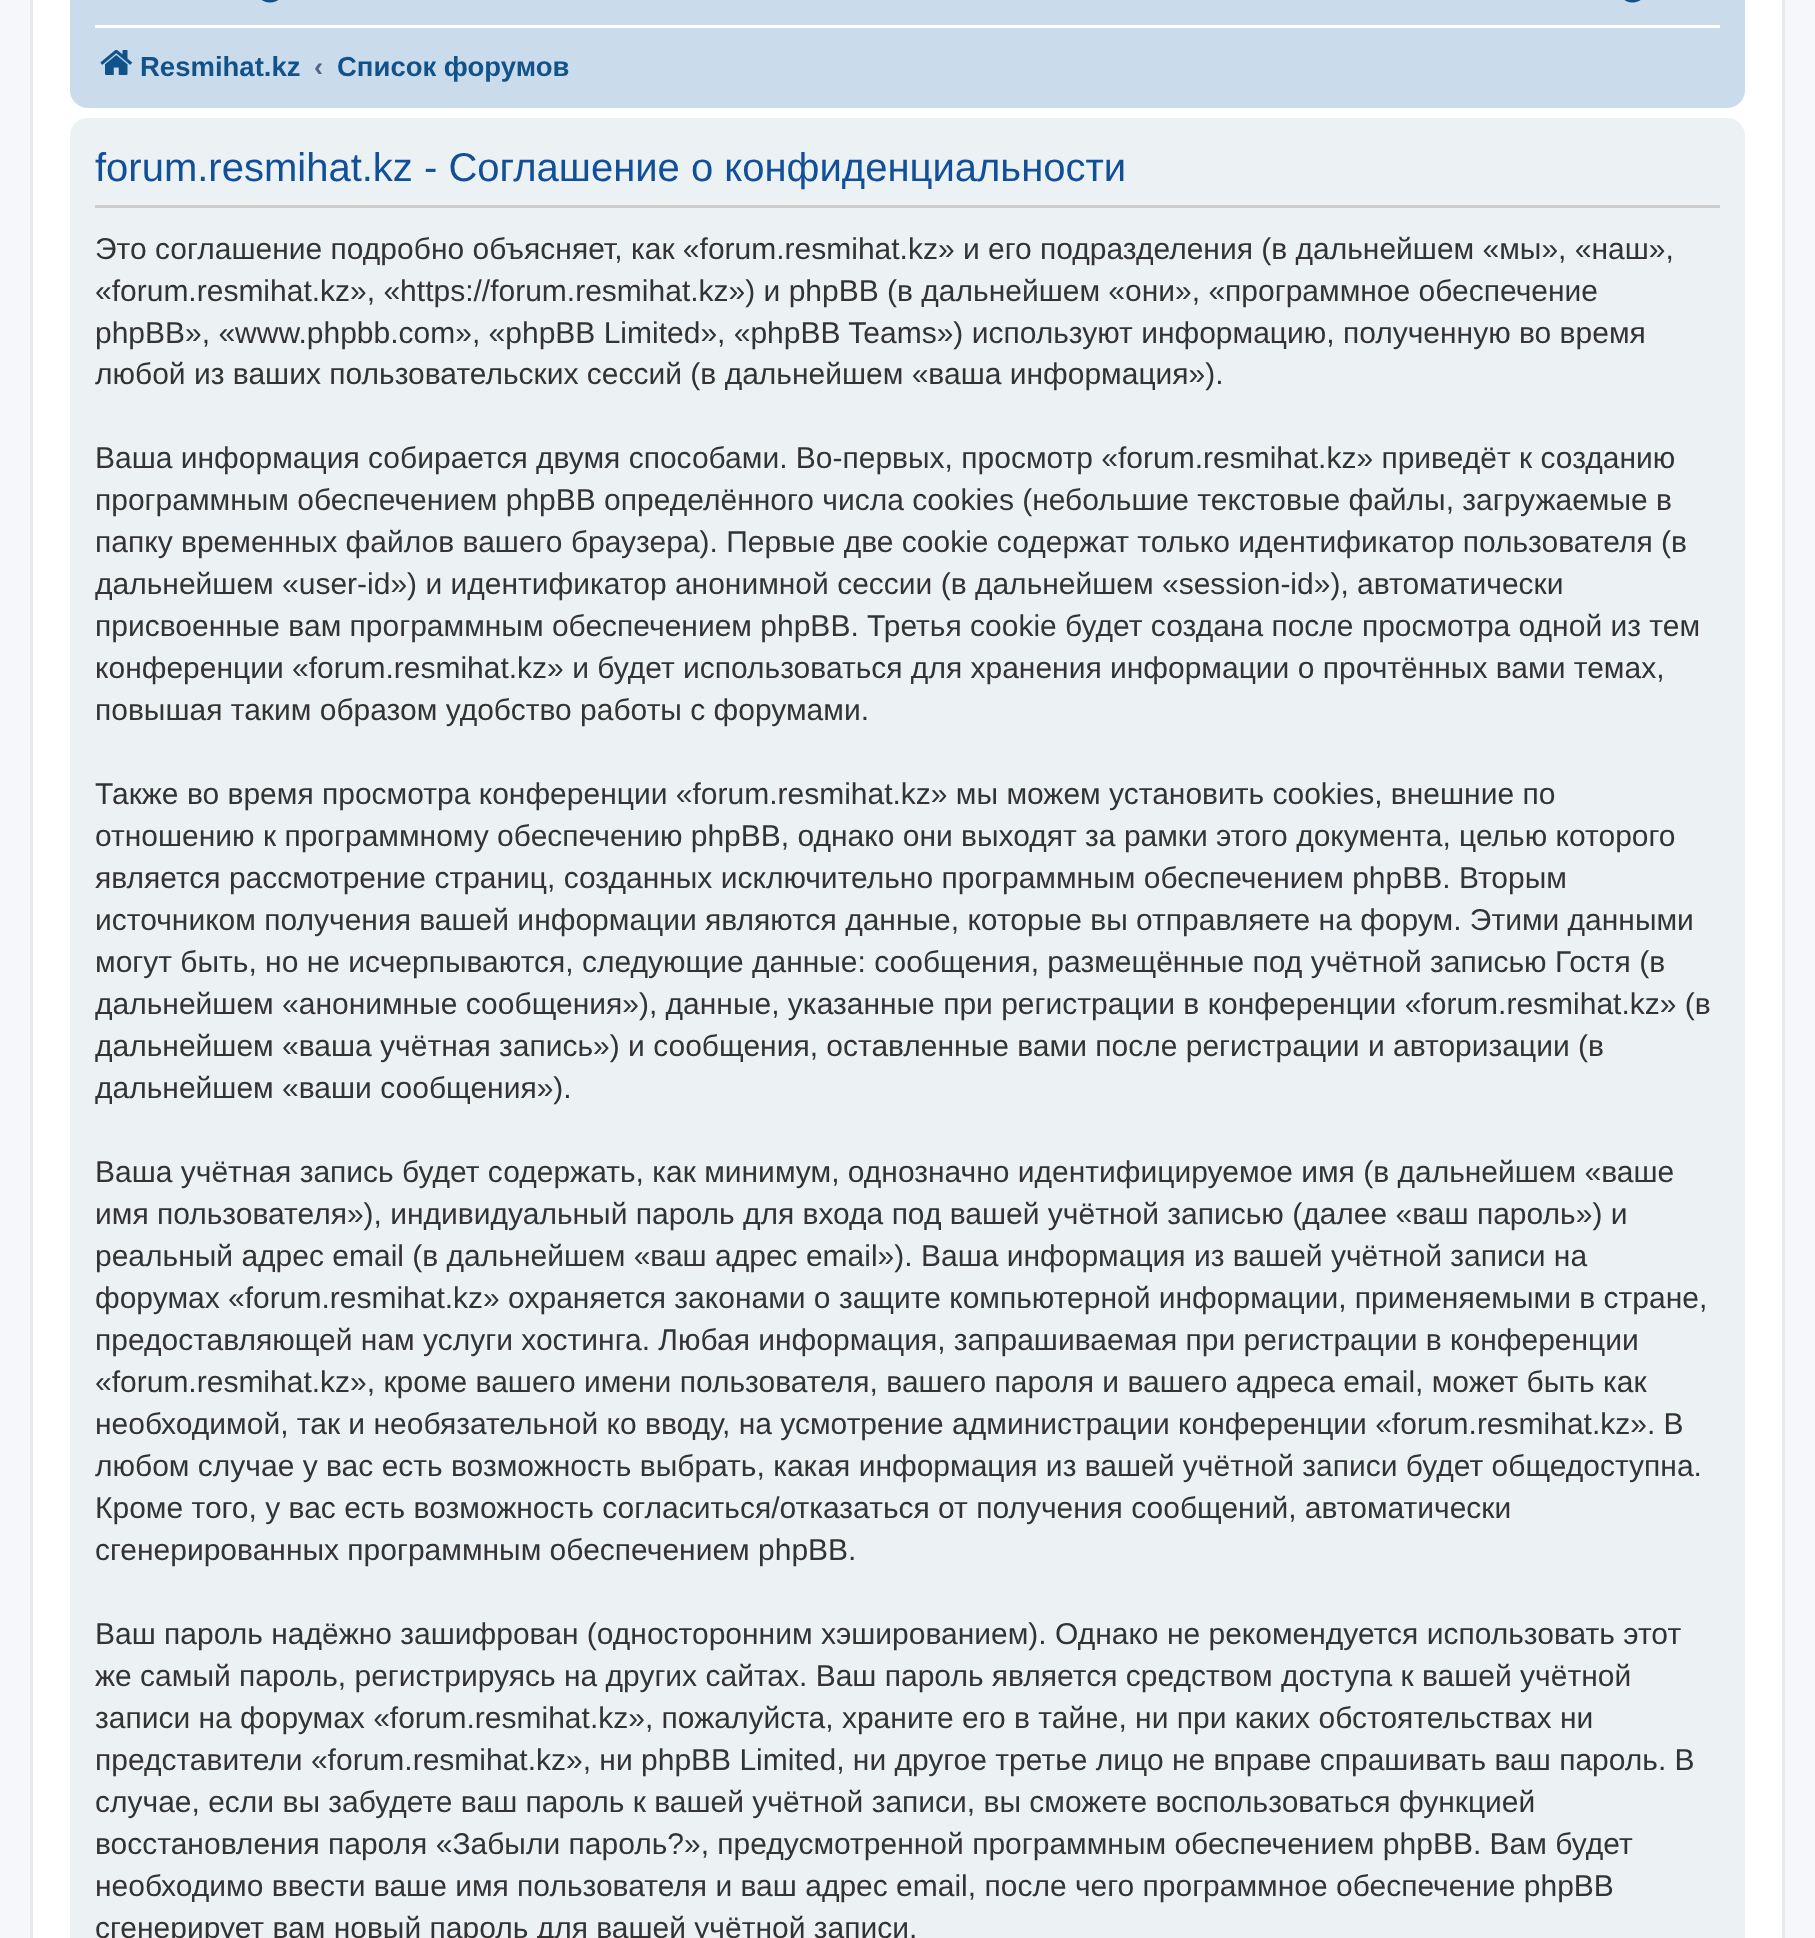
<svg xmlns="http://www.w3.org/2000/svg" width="1815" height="1938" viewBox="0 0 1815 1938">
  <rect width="100%" height="100%" fill="#f5f7fa"/>
  <path d="M31.5 -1.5h1752v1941H31.5z" fill="#fff" stroke="#e6e9ed" stroke-width="3"/>
  <rect x="70" y="-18" width="1675" height="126" rx="18" fill="#cadceb"/>
  <image x="261" y="0" width="18" height="3" href="img/1.png"/>
  <image x="1624" y="0" width="17" height="3" href="img/2.png"/>
  <path d="M95 25h1625v3H95z" fill="#fff"/>
  <image x="100" y="49" width="32" height="26" href="img/3.png"/>
  <rect x="70" y="118" width="1675" height="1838" rx="18" fill="#ecf1f3"/>
  <path d="M95 205h1625v3H95z" fill="#ccc"/>
  <text x="140" y="76" font-family="Liberation Sans" font-size="27.5" font-weight="bold" fill="#105289">Resmihat.kz</text>
  <text x="314" y="76" font-family="Liberation Sans" font-size="27.5" font-weight="bold" fill="#536482">‹</text>
  <text x="337" y="76" font-family="Liberation Sans" font-size="27.5" font-weight="bold" fill="#105289">Список форумов</text>
  <text x="95" y="181" font-family="Liberation Sans" font-size="40" fill="#115098">forum.resmihat.kz - Соглашение о конфиденциальности</text>
  <g font-family="Liberation Sans" font-size="30" fill="#333">
    <text x="95" y="259">Это соглашение подробно объясняет, как «forum.resmihat.kz» и его подразделения (в дальнейшем «мы», «наш»,</text>
    <text x="95" y="301">«forum.resmihat.kz», «https://forum.resmihat.kz») и phpBB (в дальнейшем «они», «программное обеспечение</text>
    <text x="95" y="343">phpBB», «www.phpbb.com», «phpBB Limited», «phpBB Teams») используют информацию, полученную во время</text>
    <text x="95" y="384">любой из ваших пользовательских сессий (в дальнейшем «ваша информация»).</text>
    <text x="95" y="468">Ваша информация собирается двумя способами. Во-первых, просмотр «forum.resmihat.kz» приведёт к созданию</text>
    <text x="95" y="510">программным обеспечением phpBB определённого числа cookies (небольшие текстовые файлы, загружаемые в</text>
    <text x="95" y="552">папку временных файлов вашего браузера). Первые две cookie содержат только идентификатор пользователя (в</text>
    <text x="95" y="594">дальнейшем «user-id») и идентификатор анонимной сессии (в дальнейшем «session-id»), автоматически</text>
    <text x="95" y="636">присвоенные вам программным обеспечением phpBB. Третья cookie будет создана после просмотра одной из тем</text>
    <text x="95" y="678">конференции «forum.resmihat.kz» и будет использоваться для хранения информации о прочтённых вами темах,</text>
    <text x="95" y="720">повышая таким образом удобство работы с форумами.</text>
    <text x="95" y="804">Также во время просмотра конференции «forum.resmihat.kz» мы можем установить cookies, внешние по</text>
    <text x="95" y="846">отношению к программному обеспечению phpBB, однако они выходят за рамки этого документа, целью которого</text>
    <text x="95" y="888">является рассмотрение страниц, созданных исключительно программным обеспечением phpBB. Вторым</text>
    <text x="95" y="930">источником получения вашей информации являются данные, которые вы отправляете на форум. Этими данными</text>
    <text x="95" y="972">могут быть, но не исчерпываются, следующие данные: сообщения, размещённые под учётной записью Гостя (в</text>
    <text x="95" y="1014">дальнейшем «анонимные сообщения»), данные, указанные при регистрации в конференции «forum.resmihat.kz» (в</text>
    <text x="95" y="1056">дальнейшем «ваша учётная запись») и сообщения, оставленные вами после регистрации и авторизации (в</text>
    <text x="95" y="1098">дальнейшем «ваши сообщения»).</text>
    <text x="95" y="1182">Ваша учётная запись будет содержать, как минимум, однозначно идентифицируемое имя (в дальнейшем «ваше</text>
    <text x="95" y="1224">имя пользователя»), индивидуальный пароль для входа под вашей учётной записью (далее «ваш пароль») и</text>
    <text x="95" y="1266">реальный адрес email (в дальнейшем «ваш адрес email»). Ваша информация из вашей учётной записи на</text>
    <text x="95" y="1308">форумах «forum.resmihat.kz» охраняется законами о защите компьютерной информации, применяемыми в стране,</text>
    <text x="95" y="1350">предоставляющей нам услуги хостинга. Любая информация, запрашиваемая при регистрации в конференции</text>
    <text x="95" y="1392">«forum.resmihat.kz», кроме вашего имени пользователя, вашего пароля и вашего адреса email, может быть как</text>
    <text x="95" y="1434">необходимой, так и необязательной ко вводу, на усмотрение администрации конференции «forum.resmihat.kz». В</text>
    <text x="95" y="1476">любом случае у вас есть возможность выбрать, какая информация из вашей учётной записи будет общедоступна.</text>
    <text x="95" y="1518">Кроме того, у вас есть возможность согласиться/отказаться от получения сообщений, автоматически</text>
    <text x="95" y="1560">сгенерированных программным обеспечением phpBB.</text>
    <text x="95" y="1644">Ваш пароль надёжно зашифрован (односторонним хэшированием). Однако не рекомендуется использовать этот</text>
    <text x="95" y="1686">же самый пароль, регистрируясь на других сайтах. Ваш пароль является средством доступа к вашей учётной</text>
    <text x="95" y="1728">записи на форумах «forum.resmihat.kz», пожалуйста, храните его в тайне, ни при каких обстоятельствах ни</text>
    <text x="95" y="1770">представители «forum.resmihat.kz», ни phpBB Limited, ни другое третье лицо не вправе спрашивать ваш пароль. В</text>
    <text x="95" y="1812">случае, если вы забудете ваш пароль к вашей учётной записи, вы сможете воспользоваться функцией</text>
    <text x="95" y="1854">восстановления пароля «Забыли пароль?», предусмотренной программным обеспечением phpBB. Вам будет</text>
    <text x="95" y="1896">необходимо ввести ваше имя пользователя и ваш адрес email, после чего программное обеспечение phpBB</text>
    <text x="95" y="1938">сгенерирует вам новый пароль для вашей учётной записи.</text>
  </g>
</svg>
